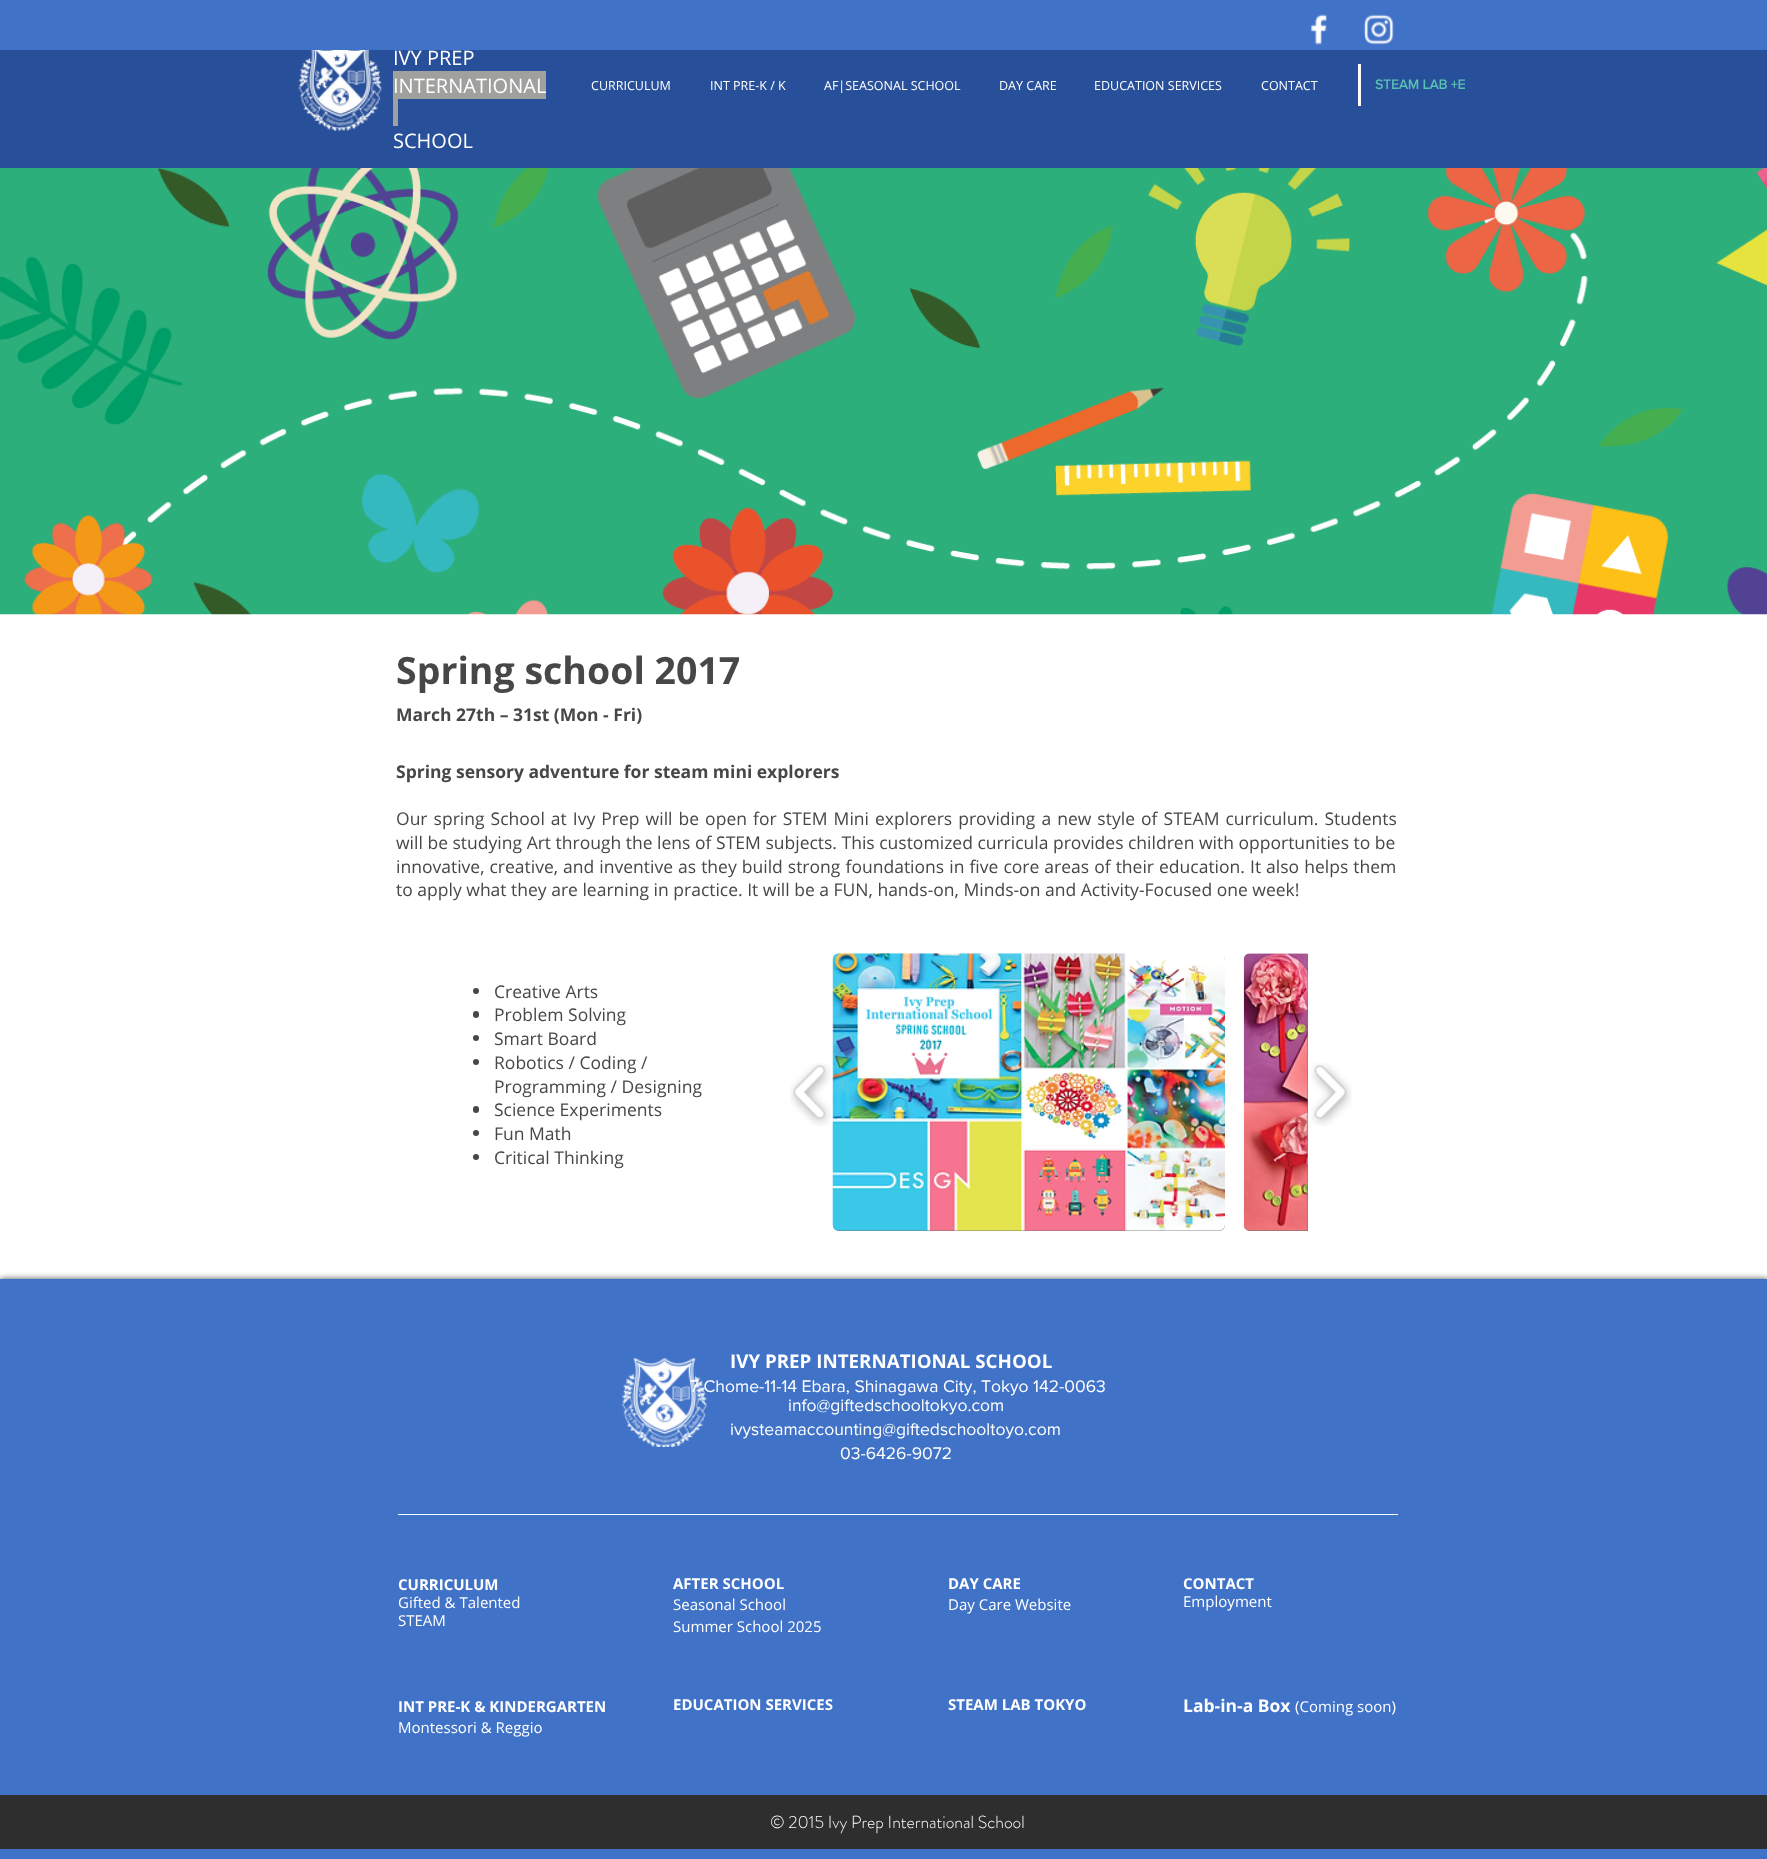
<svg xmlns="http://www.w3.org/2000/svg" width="1767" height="1859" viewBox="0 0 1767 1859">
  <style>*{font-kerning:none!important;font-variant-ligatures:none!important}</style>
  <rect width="100%" height="100%" fill="#fff"/>
  <path d="M0 0h1767v50H0z" fill="#4072c7"/>
  <image x="1311" y="14" width="16" height="31" href="img/1.png"/>
  <image x="1363" y="14" width="31" height="31" href="img/2.png"/>
  <path d="M0 50h1767v118H0z" fill="#284f99"/>
  <image x="298" y="50" width="84" height="81" href="img/3.png"/>
  <path d="M393 71h153v28H393z" fill="#a0a09f"/>
  <path d="M393 99h5v27H393z" fill="#a0a09f"/>
  <path d="M1358 64h3v42H1358z" fill="#fff"/>
  <image x="0" y="168" width="1767" height="447" href="img/4.png"/>
  <circle cx="476" cy="991" r="3" fill="#474747"/>
  <rect x="473" y="1011" width="6" height="7" rx="3" fill="#474747"/>
  <circle cx="476" cy="1038" r="3" fill="#474747"/>
  <circle cx="476" cy="1062" r="3" fill="#474747"/>
  <image x="790" y="1063" width="41" height="63" href="img/5.png"/>
  <rect x="833" y="954" width="392" height="277" rx="6" fill="#727272"/>
  <image x="832" y="953" width="393" height="278" href="img/6.png"/>
  <path d="M1250 954H1308V1231H1250C1246.5 1231 1244 1228.5 1244 1225V960C1244 956.5 1246.5 954 1250 954Z" fill="#727272"/>
  <image x="1243" y="953" width="65" height="278" href="img/7.png"/>
  <image x="1311" y="1063" width="41" height="63" href="img/8.png"/>
  <rect x="473" y="1106" width="6" height="7" rx="3" fill="#474747"/>
  <circle cx="476" cy="1133" r="3" fill="#474747"/>
  <circle cx="476" cy="1157" r="3" fill="#474747"/>
  <path d="M0 1279h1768v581H0z" fill="#000000b3" filter="blur(3px)"/>
  <path d="M0 1279h1767v580H0z" fill="#4072c7"/>
  <path d="M398 1514h1000v1H398z" fill="#fff"/>
  <path d="M0 1795h1767v54H0z" fill="#2f2e2e"/>
  <g font-family="Open Sans" font-size="20" fill="#fff">
    <text x="393" y="65">IVY PREP</text>
    <text x="393" y="93">INTERNATIONAL</text>
    <text x="393" y="148">SCHOOL</text>
  </g>
  <g font-family="Open Sans" font-size="12.5" fill="#fff">
    <text x="591" y="90">CURRICULUM</text>
    <text x="710" y="90">INT PRE-K / K</text>
    <text x="824" y="90">AF|SEASONAL SCHOOL</text>
    <text x="999" y="90">DAY CARE</text>
    <text x="1094" y="90">EDUCATION SERVICES</text>
    <text x="1261" y="90">CONTACT</text>
  </g>
  <text x="1375" y="89" font-family="'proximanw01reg'" font-size="13.75" font-weight="bold" fill="#59c1b4">STEAM LAB +E</text>
  <text x="396" y="684" font-family="Open Sans" font-size="37.5" font-weight="bold" fill="#474747">Spring school 2017</text>
  <g font-family="Open Sans" font-size="17.5" font-weight="bold" fill="#474747">
    <text x="396" y="721">March 27th – 31st (Mon - Fri)</text>
    <text x="396" y="778">Spring sensory adventure for steam mini explorers</text>
  </g>
  <g font-family="Open Sans" font-size="17.5" fill="#474747">
    <text x="396" y="825" word-spacing="1.5">Our spring School at Ivy Prep will be open for STEM Mini explorers providing a new style of STEAM curriculum. Students</text>
    <text x="396" y="849">will be studying Art through the lens of STEM subjects. This customized curricula provides children with opportunities to be</text>
    <text x="396" y="873" word-spacing="0.5">innovative, creative, and inventive as they build strong foundations in five core areas of their education. It also helps them</text>
    <text x="396" y="896">to apply what they are learning in practice. It will be a FUN, hands-on, Minds-on and Activity-Focused one week!</text>
    <text x="494" y="998">Creative Arts</text>
    <text x="494" y="1021">Problem Solving</text>
    <text x="494" y="1045">Smart Board</text>
    <text x="494" y="1069">Robotics / Coding /</text>
    <text x="494" y="1093">Programming / Designing</text>
    <text x="494" y="1116">Science Experiments</text>
    <text x="494" y="1140">Fun Math</text>
    <text x="494" y="1164">Critical Thinking</text>
  </g>
  <text x="730" y="1368" font-family="Open Sans" font-size="18.75" font-weight="bold" fill="#fff">IVY PREP INTERNATIONAL SCHOOL</text>
  <text x="690" y="1392" font-family="'proximanw01reg'" font-size="17.5" fill="#fff">7 Chome-11-14 Ebara, Shinagawa City, Tokyo 142-0063</text>
  <image x="621" y="1358" width="87" height="89" href="img/9.png"/>
  <g font-family="'proximanw01reg'" font-size="17.5" fill="#fff">
    <text x="788" y="1411">info@giftedschooltokyo.com</text>
    <text x="730" y="1435">ivysteamaccounting@giftedschooltoyo.com</text>
    <text x="840" y="1459">03-6426-9072</text>
  </g>
  <text x="398" y="1590" font-family="Open Sans" font-size="15" font-weight="bold" fill="#fff">CURRICULUM</text>
  <g font-family="Open Sans" font-size="15" fill="#fff">
    <text x="398" y="1608">Gifted &amp; Talented</text>
    <text x="398" y="1626">STEAM</text>
  </g>
  <text x="673" y="1589" font-family="Open Sans" font-size="15" font-weight="bold" fill="#fff">AFTER SCHOOL</text>
  <g font-family="Open Sans" font-size="15" fill="#fff">
    <text x="673" y="1610">Seasonal School</text>
    <text x="673" y="1632">Summer School 2025</text>
  </g>
  <text x="948" y="1589" font-family="Open Sans" font-size="15" font-weight="bold" fill="#fff">DAY CARE</text>
  <text x="948" y="1610" font-family="Open Sans" font-size="15" fill="#fff">Day Care Website</text>
  <text x="1183" y="1589" font-family="Open Sans" font-size="15" font-weight="bold" fill="#fff">CONTACT</text>
  <text x="1183" y="1607" font-family="Open Sans" font-size="15" fill="#fff">Employment</text>
  <text x="398" y="1712" font-family="Open Sans" font-size="15" font-weight="bold" fill="#fff">INT PRE-K &amp; KINDERGARTEN</text>
  <text x="398" y="1733" font-family="Open Sans" font-size="15" fill="#fff">Montessori &amp; Reggio</text>
  <g font-family="Open Sans" font-size="15" font-weight="bold" fill="#fff">
    <text x="673" y="1710">EDUCATION SERVICES</text>
    <text x="948" y="1710">STEAM LAB TOKYO</text>
  </g>
  <text x="1183" y="1712" font-family="Open Sans" font-size="17.5" font-weight="bold" fill="#fff">Lab-in-a Box</text>
  <text x="1295" y="1712" font-family="Open Sans" font-size="15" fill="#fff">(Coming soon)</text>
  <text x="770" y="1828" font-family="'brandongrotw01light'" font-size="17.5" font-weight="300" fill="#fff">© 2015 Ivy Prep International School</text>
</svg>
